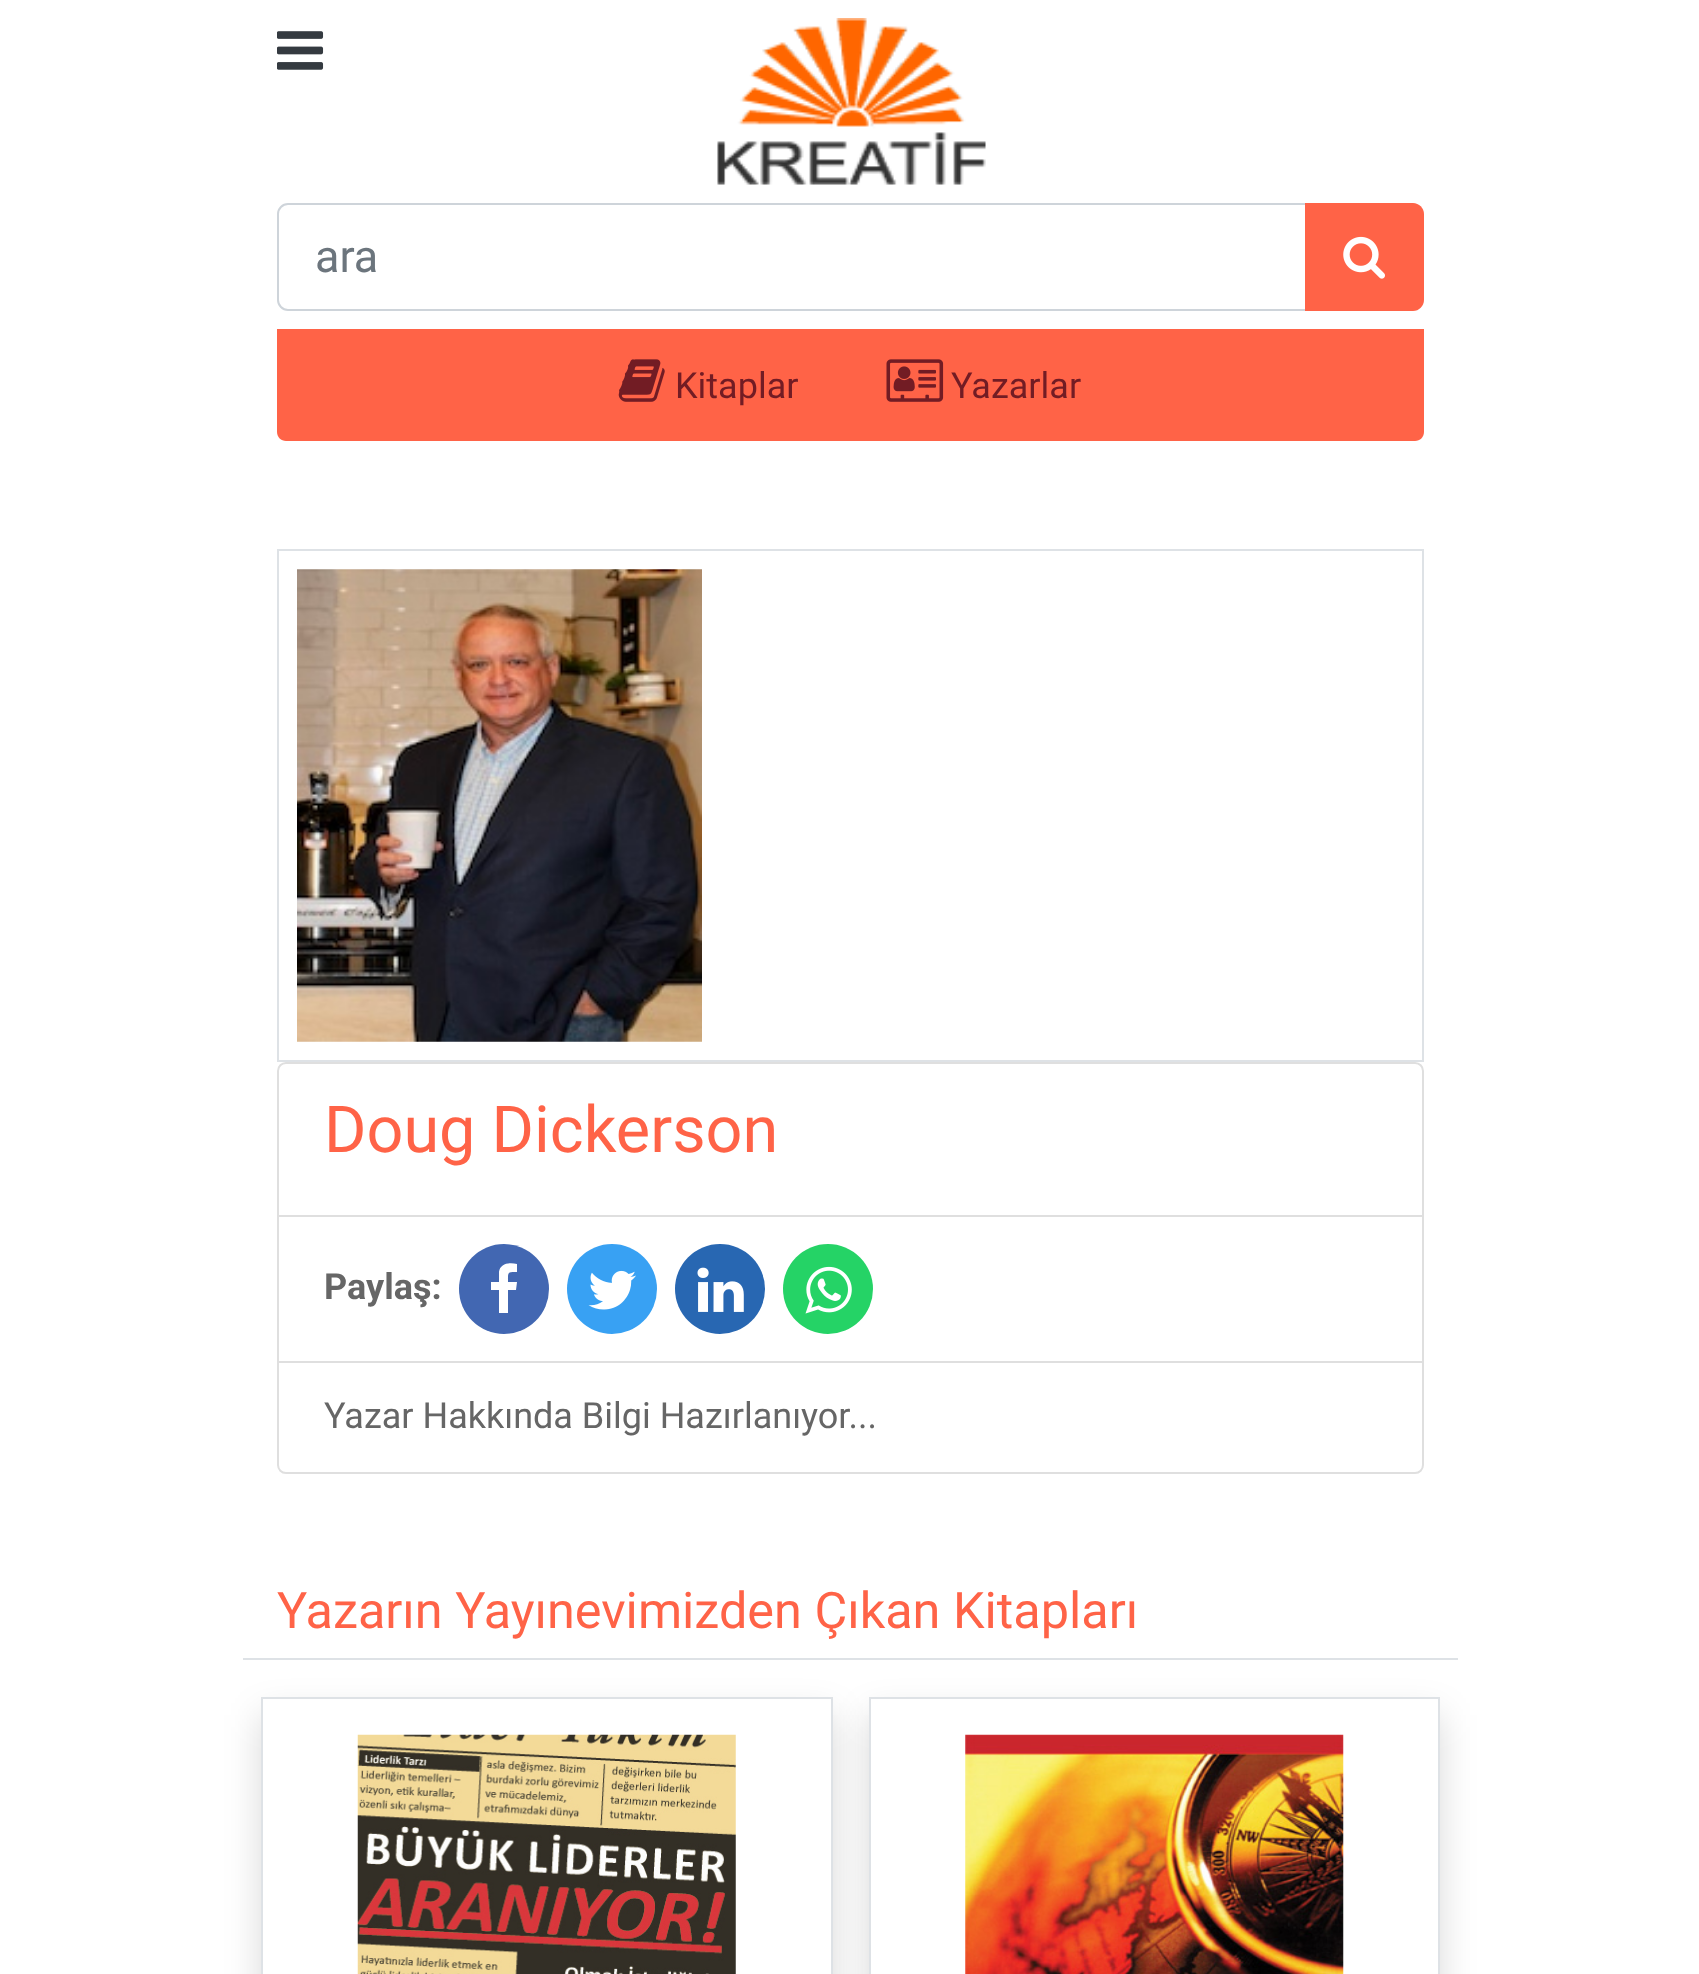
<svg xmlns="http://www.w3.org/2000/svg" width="1699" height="1974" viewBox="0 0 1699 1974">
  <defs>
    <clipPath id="clip1"><path d="M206 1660H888V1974H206ZM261 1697H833V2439H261Z" clip-rule="evenodd"/></clipPath>
    <clipPath id="clip2"><path d="M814 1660H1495V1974H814ZM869 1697H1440V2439H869Z" clip-rule="evenodd"/></clipPath>
  </defs>
  <rect width="100%" height="100%" fill="#fff"/>
  <image x="277" y="31" width="47" height="39" href="img/1.png"/>
  <image x="717" y="18" width="269" height="167" href="img/2.png"/>
  <path d="M288 204H1306V310H288C282.5 310 278 305.5 278 300V214C278 208.5 282.5 204 288 204Z" fill="none" stroke="#ced4da" stroke-width="2"/>
  <path d="M1305 203H1413C1419 203 1424 208 1424 214V300C1424 306 1419 311 1413 311H1305Z" fill="#ff6347"/>
  <image x="1343" y="236" width="42" height="43" href="img/3.png"/>
  <path d="M277 329H1424V432C1424 437 1420 441 1415 441H286C281 441 277 437 277 432Z" fill="#ff6347"/>
  <image x="618" y="359" width="47" height="43" href="img/4.png"/>
  <image x="886" y="359" width="58" height="43" href="img/5.png"/>
  <path d="M278 550h1145v511H278z" fill="none" stroke="#dee2e6" stroke-width="2"/>
  <image x="297" y="569" width="405" height="473" href="img/6.png"/>
  <path d="M286 1063H1415C1419.5 1063 1423 1066.5 1423 1071V1216H278V1071C278 1066.5 281.5 1063 286 1063Z" fill="none" stroke="#dfdfdf" stroke-width="2"/>
  <path d="M278 1216h1145v147H278z" fill="none" stroke="#dfdfdf" stroke-width="2"/>
  <circle cx="504" cy="1289" r="45" fill="#4267b2"/>
  <path d="M517 1264V1272C507 1272 508 1272 508 1282H517L516 1290H508V1313H499V1290H491V1282H499V1272C500 1263 510 1262 517 1264Z" fill="#fff"/>
  <circle cx="612" cy="1289" r="45" fill="#38a1f3"/>
  <image x="588" y="1270" width="48" height="40" href="img/7.png"/>
  <circle cx="720" cy="1289" r="45" fill="#2867b2"/>
  <image x="697" y="1267" width="47" height="45" href="img/8.png"/>
  <circle cx="828" cy="1289" r="45" fill="#25d366"/>
  <image x="805" y="1266" width="47" height="48" href="img/9.png"/>
  <path d="M278 1362H1423V1465C1423 1469.5 1419.5 1473 1415 1473H286C281.5 1473 278 1469.5 278 1465Z" fill="#fff" stroke="#dfdfdf" stroke-width="2"/>
  <path d="M243 1658h1215v2H243z" fill="#dee2e6"/>
  <g clip-path="url(#clip1)">
    <path d="M261 1715h572v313H261z" fill="#00000026" filter="blur(18px)"/>
  </g>
  <path d="M262 1698h570v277H262z" fill="none" stroke="#dee2e6" stroke-width="2"/>
  <image x="357" y="1734" width="379" height="240" href="img/10.png"/>
  <g clip-path="url(#clip2)">
    <path d="M869 1715h571v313H869z" fill="#00000026" filter="blur(18px)"/>
  </g>
  <path d="M870 1698h569v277H870z" fill="none" stroke="#dee2e6" stroke-width="2"/>
  <image x="965" y="1734" width="379" height="240" href="img/11.png"/>
  <text x="315" y="272" font-family="Roboto" font-size="45" fill="#6c757d">ara</text>
  <g font-family="Roboto" font-size="36" fill="#721c24">
    <text x="675" y="398">Kitaplar</text>
    <text x="951" y="398">Yazarlar</text>
  </g>
  <text x="324" y="1152" font-family="Roboto" font-size="64.75" fill="#ff6347">Doug Dickerson</text>
  <text x="324" y="1299" font-family="Roboto" font-size="36" font-weight="bold" fill="#666">Paylaş:</text>
  <text x="324" y="1428" font-family="Roboto" font-size="36" fill="#666">Yazar Hakkında Bilgi Hazırlanıyor...</text>
  <text x="277" y="1628" font-family="Roboto" font-size="50.4" fill="#ff6347">Yazarın Yayınevimizden Çıkan Kitapları</text>
</svg>
